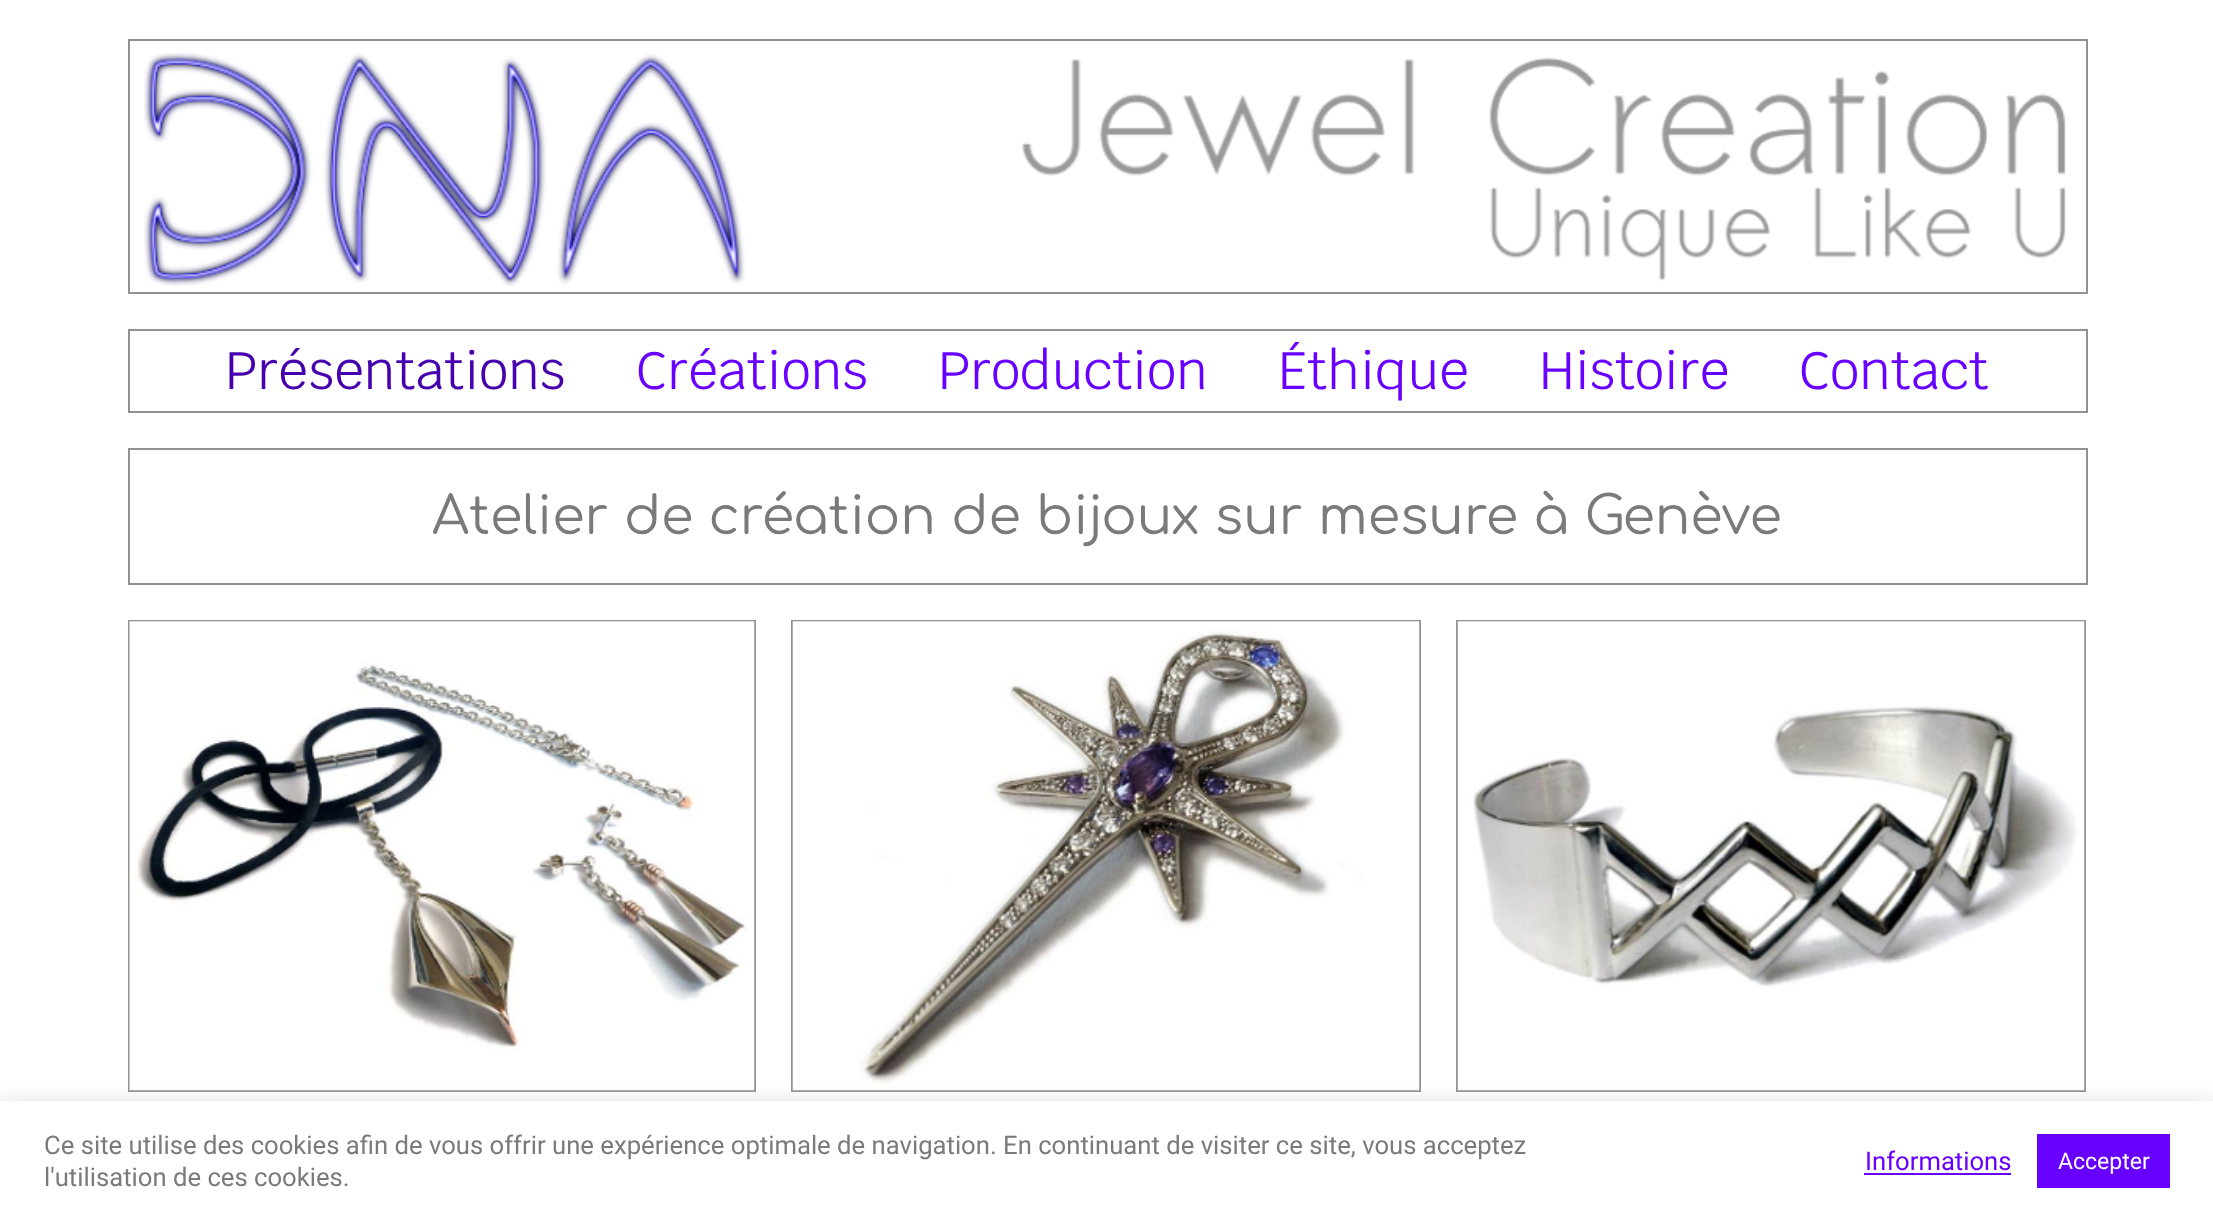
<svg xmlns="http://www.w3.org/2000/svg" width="2213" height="1221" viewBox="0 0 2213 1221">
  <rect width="100%" height="100%" fill="#fff"/>
  <path d="M129 40h1958v253H129z" fill="none" stroke="#929292" stroke-width="2"/>
  <image x="144" y="52" width="1922" height="234" href="img/1.png"/>
  <path d="M129 330h1958v82H129z" fill="none" stroke="#929292" stroke-width="2"/>
  <path d="M129 449h1958v135H129z" fill="none" stroke="#929292" stroke-width="2"/>
  <path d="M129 621h626v470H129z" fill="none" stroke="#929292" stroke-width="2"/>
  <image x="129" y="621" width="626" height="470" href="img/2.png"/>
  <path d="M792 621h628v470H792z" fill="none" stroke="#929292" stroke-width="2"/>
  <image x="792" y="621" width="628" height="470" href="img/3.png"/>
  <path d="M1457 621h628v470H1457z" fill="none" stroke="#929292" stroke-width="2"/>
  <image x="1457" y="621" width="628" height="470" href="img/4.png"/>
  <path d="M0 1099h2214v121H0z" fill="#acabab4d" filter="blur(9px)"/>
  <path d="M0 1101h2213v120H0z" fill="#fff"/>
  <path d="M1864 1173h147v2H1864z" fill="#6800ff"/>
  <path d="M2037 1134h133v54H2037z" fill="#6800ff"/>
  <text x="225" y="389" font-family="Krub" font-size="52.5" fill="#4600ad">Présentations</text>
  <g font-family="Krub" font-size="52.5" fill="#6800ff">
    <text x="636" y="389">Créations</text>
    <text x="938" y="389">Production</text>
    <text x="1278" y="389">Éthique</text>
    <text x="1539" y="389">Histoire</text>
    <text x="1799" y="389">Contact</text>
  </g>
  <text x="432" y="534" font-family="Comfortaa" font-size="52.5" fill="#7a7a7a">Atelier de création de bijoux sur mesure à Genève</text>
  <g font-family="Roboto" font-size="25.67" fill="#7a7a7a">
    <text x="44" y="1154">Ce site utilise des cookies afin de vous offrir une expérience optimale de navigation. En continuant de visiter ce site, vous acceptez</text>
    <text x="44" y="1186">l'utilisation de ces cookies.</text>
  </g>
  <text x="1865" y="1170" font-family="Roboto" font-size="25.67" fill="#6800ff">Informations</text>
  <text x="2058" y="1169" font-family="Roboto" font-size="23" fill="#fff">Accepter</text>
</svg>
